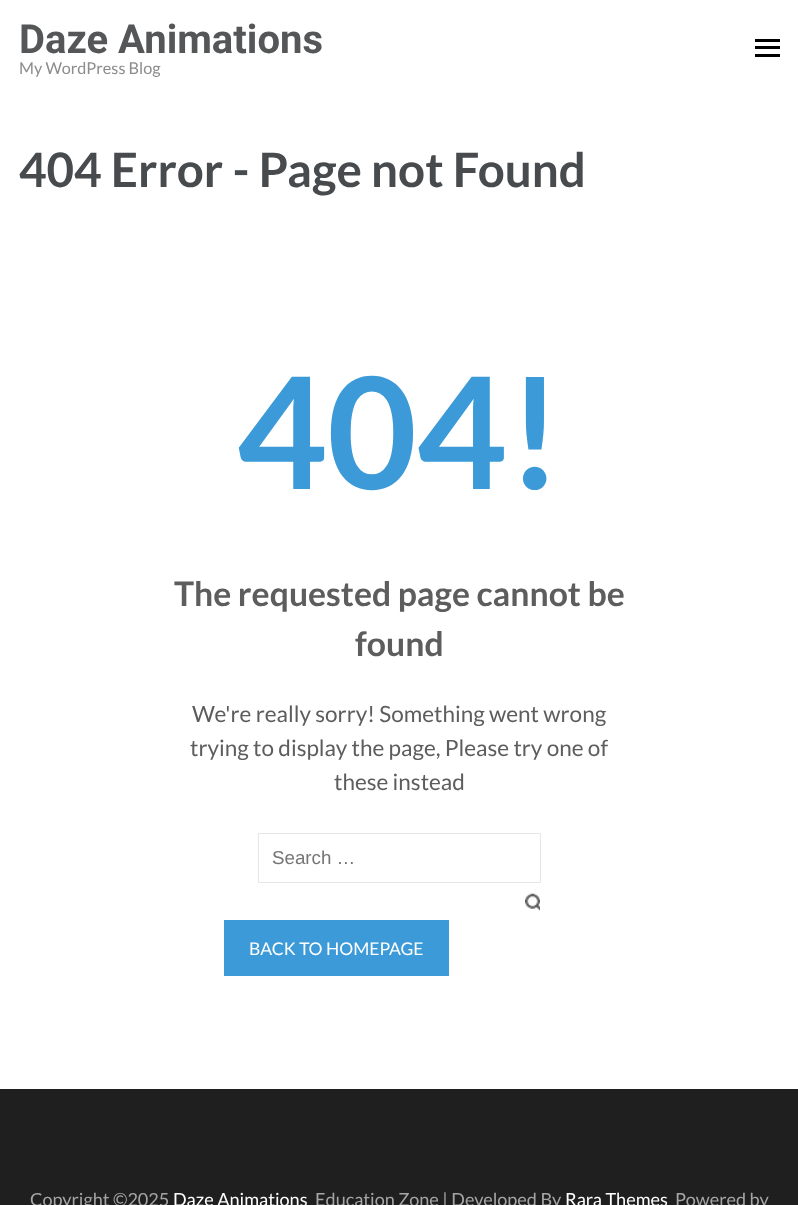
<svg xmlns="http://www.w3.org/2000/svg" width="798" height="1205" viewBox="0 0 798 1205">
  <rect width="100%" height="100%" fill="#fff"/>
  <path d="M755 39h25v3H755z" fill="#000"/>
  <path d="M755 46h25v3H755z" fill="#000"/>
  <path d="M755 54h25v3H755z" fill="#000"/>
  <path d="M258.5 833.5h282v49H258.5z" fill="none" stroke="#e6e6e6"/>
  <image x="525" y="893" width="15" height="18" href="img/1.png"/>
  <path d="M224 920h225v56H224z" fill="#3b9ad7"/>
  <path d="M0 1089h798v116H0z" fill="#1f1f1f"/>
  <text x="19" y="53" font-family="Roboto" font-size="40" font-weight="bold" fill="#555658">Daze Animations</text>
  <text x="19" y="74" font-family="Lato" font-size="16.25" fill="#8c8c8c">My WordPress Blog</text>
  <text x="19" y="187" font-family="Lato" font-size="47.5" font-weight="bold" fill="#474b4e">404 Error - Page not Found</text>
  <text x="237" y="489" font-family="Lato" font-size="155" font-weight="bold" fill="#3b9ad7">404!</text>
  <g font-family="Lato" font-size="33.75" font-weight="bold" fill="#5d5d5d">
    <text x="174" y="606">The requested page cannot be</text>
    <text x="355" y="656">found</text>
  </g>
  <g font-family="Lato" font-size="22.5" fill="#5d5d5d">
    <text x="192" y="722">We're really sorry! Something went wrong</text>
    <text x="190" y="756">trying to display the page, Please try one of</text>
    <text x="334" y="790">these instead</text>
  </g>
  <text x="272" y="864" font-family="Liberation Sans" font-size="18.75" fill="#757575">Search …</text>
  <text x="249" y="955" font-family="Lato" font-size="17.5" fill="#fff">BACK TO HOMEPAGE</text>
  <text x="30" y="1206" font-family="Lato" font-size="18.1" fill="#a6a6a6">Copyright ©2025</text>
  <text x="173" y="1206" font-family="Lato" font-size="18.1" fill="#fff">Daze Animations</text>
  <text x="315" y="1206" font-family="Lato" font-size="18.1" fill="#a6a6a6">Education Zone | Developed By</text>
  <text x="565" y="1206" font-family="Lato" font-size="18.1" fill="#fff">Rara Themes</text>
  <text x="675" y="1206" font-family="Lato" font-size="18.1" fill="#a6a6a6">Powered by</text>
</svg>
